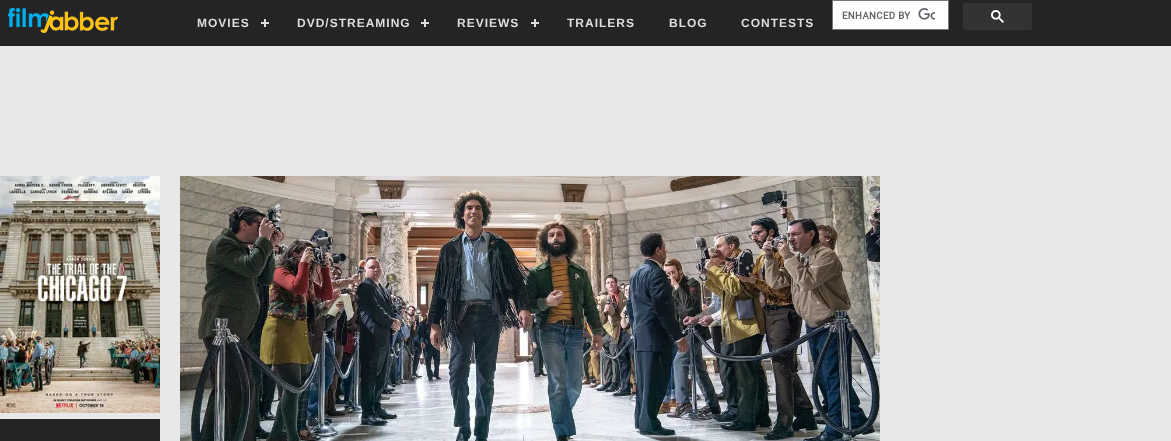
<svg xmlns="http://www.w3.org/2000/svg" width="1171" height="441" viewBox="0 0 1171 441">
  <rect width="100%" height="100%" fill="#e8e8e8"/>
  <path d="M0 0h1171v46H0z" fill="#242424"/>
  <image x="8" y="8" width="110" height="25" href="img/1.png"/>
  <path d="M264 19h2v8H264z" fill="#ddd"/>
  <path d="M261 22h8v2H261z" fill="#ddd"/>
  <path d="M424 19h2v8H424z" fill="#ddd"/>
  <path d="M421 22h8v2H421z" fill="#ddd"/>
  <path d="M534 19h2v8H534z" fill="#ddd"/>
  <path d="M531 22h8v2H531z" fill="#ddd"/>
  <path d="M832.5 0.5h116v29H832.5z" fill="#fff" stroke="#777"/>
  <image x="842" y="8" width="93" height="12" href="img/2.png"/>
  <rect x="963.5" y="3.5" width="68" height="26" rx="1.5" fill="#333" stroke="#333"/>
  <image x="991" y="10" width="13" height="13" href="img/3.png"/>
  <image x="0" y="176" width="160" height="237" href="img/4.png"/>
  <path d="M0 419h160v22H0z" fill="#242424"/>
  <image x="180" y="176" width="700" height="265" href="img/5.png"/>
  <g font-family="Liberation Sans" font-size="12" font-weight="bold" letter-spacing="1" fill="#ddd">
    <text x="197" y="27">MOVIES</text>
    <text x="297" y="27">DVD/STREAMING</text>
    <text x="457" y="27">REVIEWS</text>
    <text x="567" y="27">TRAILERS</text>
    <text x="669" y="27">BLOG</text>
    <text x="741" y="27">CONTESTS</text>
  </g>
</svg>
